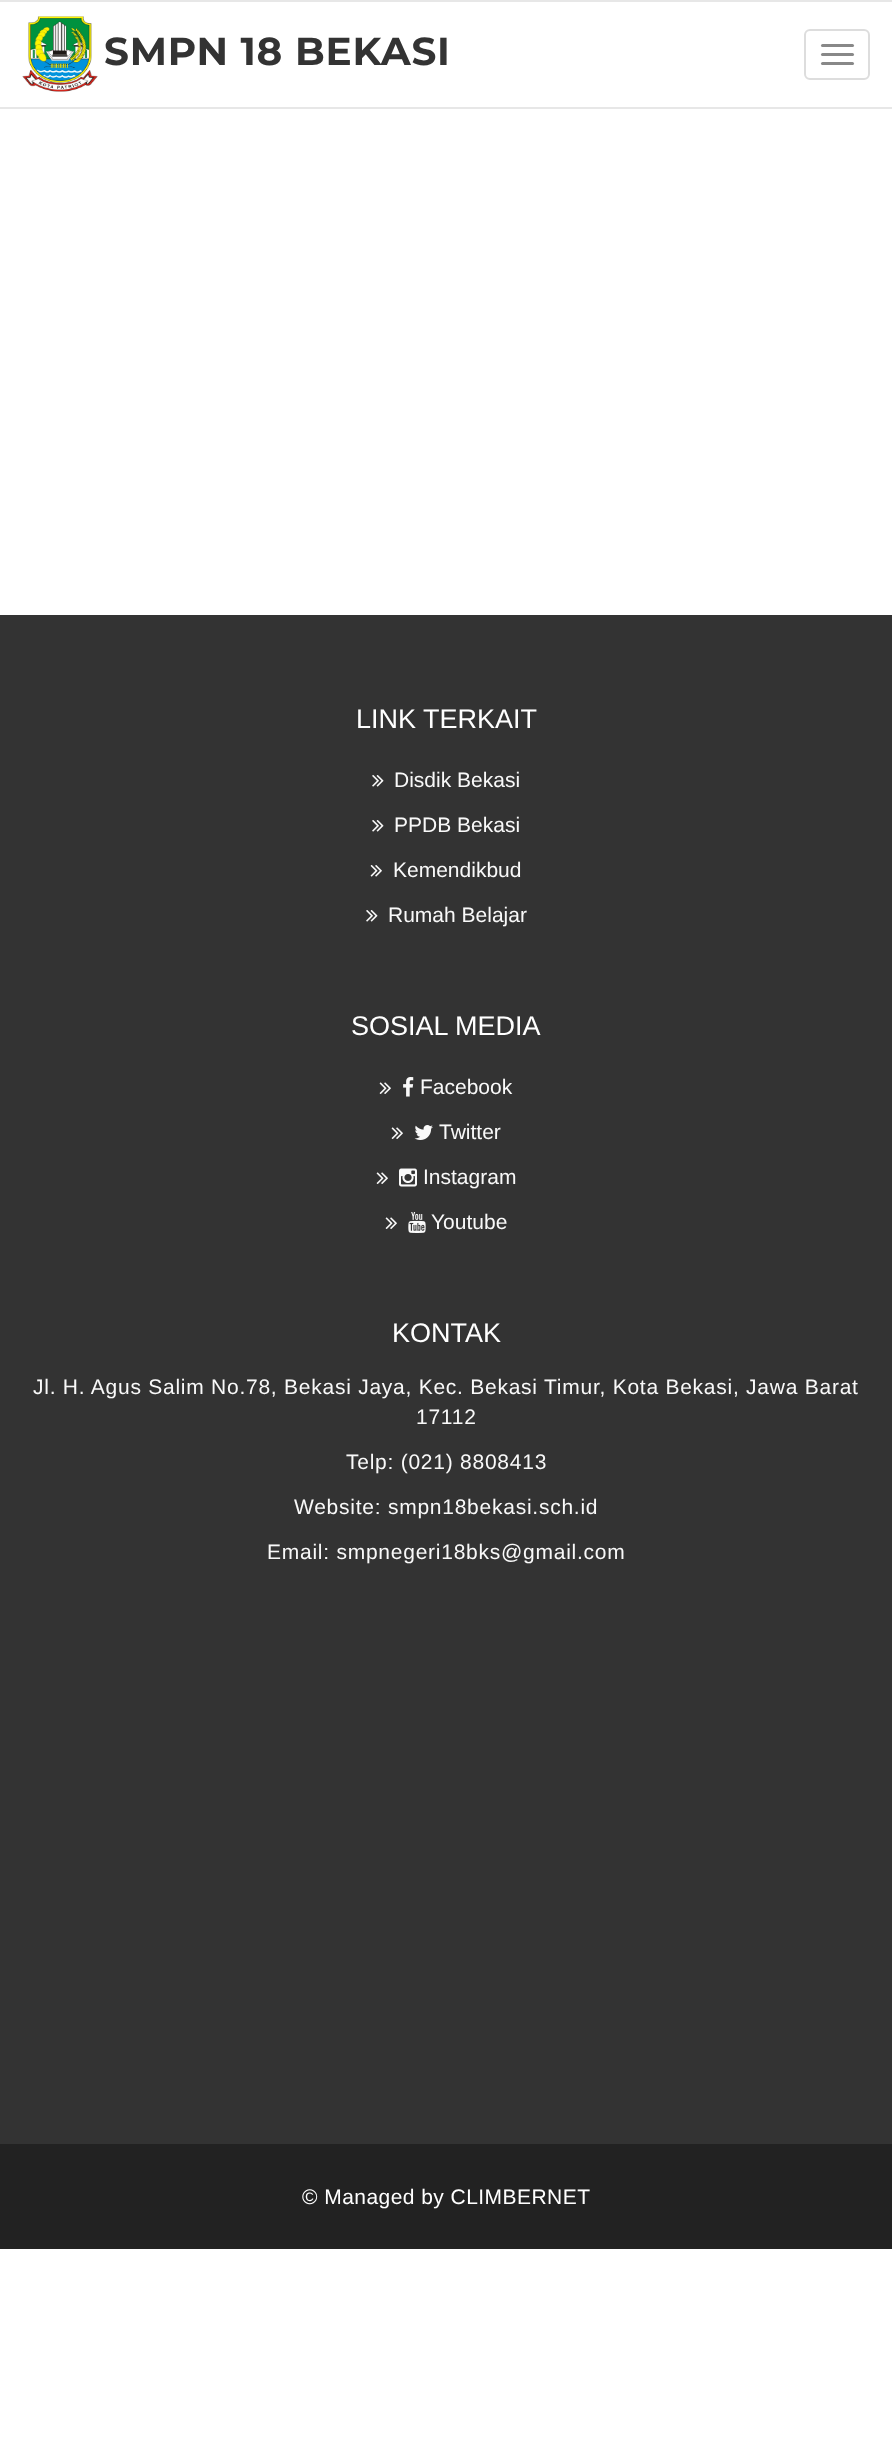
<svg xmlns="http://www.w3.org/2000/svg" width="892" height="2453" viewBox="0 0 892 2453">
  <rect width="100%" height="100%" fill="#fff"/>
  <path d="M0 0h892v2H0z" fill="#e7e7e7"/>
  <path d="M0 107h892v2H0z" fill="#e7e7e7"/>
  <image x="22" y="16" width="76" height="76" href="img/1.png"/>
  <rect x="805" y="30" width="64" height="49" rx="5" fill="none" stroke="#ddd" stroke-width="2"/>
  <rect x="821" y="44" width="33" height="3" rx="1.5" fill="#888"/>
  <rect x="821" y="53" width="33" height="3" rx="1.5" fill="#888"/>
  <rect x="821" y="62" width="33" height="3" rx="1.5" fill="#888"/>
  <path d="M0 615h892v1529H0z" fill="#333"/>
  <image x="372" y="775" width="12" height="12" href="img/2.png"/>
  <image x="372" y="820" width="12" height="12" href="img/2.png"/>
  <image x="370" y="865" width="12" height="12" href="img/3.png"/>
  <image x="366" y="910" width="12" height="12" href="img/2.png"/>
  <image x="379" y="1082" width="12" height="12" href="img/4.png"/>
  <image x="403" y="1077" width="11" height="20" href="img/5.png"/>
  <image x="391" y="1127" width="12" height="12" href="img/4.png"/>
  <image x="414" y="1125" width="19" height="15" href="img/6.png"/>
  <image x="376" y="1172" width="12" height="12" href="img/4.png"/>
  <image x="399" y="1168" width="18" height="19" href="img/7.png"/>
  <image x="385" y="1217" width="12" height="12" href="img/4.png"/>
  <image x="408" y="1212" width="18" height="21" href="img/8.png"/>
  <path d="M0 2144h892v105H0z" fill="#222"/>
  <text x="104" y="65" font-family="Montserrat" font-size="39" font-weight="bold" letter-spacing="0.75" fill="#333">SMPN 18 BEKASI</text>
  <text x="356" y="728" font-family="Liberation Sans" font-size="27" fill="#fff">LINK TERKAIT</text>
  <g font-family="Liberation Sans" font-size="21" fill="#f9f9f9">
    <text x="394" y="787">Disdik Bekasi</text>
    <text x="394" y="832">PPDB Bekasi</text>
    <text x="393" y="877">Kemendikbud</text>
    <text x="388" y="922">Rumah Belajar</text>
  </g>
  <text x="351" y="1035" font-family="Liberation Sans" font-size="27" fill="#fff">SOSIAL MEDIA</text>
  <g font-family="Liberation Sans" font-size="21" fill="#f9f9f9">
    <text x="420" y="1094">Facebook</text>
    <text x="439" y="1139">Twitter</text>
    <text x="423" y="1184">Instagram</text>
    <text x="431" y="1229">Youtube</text>
  </g>
  <text x="392" y="1342" font-family="Liberation Sans" font-size="27" fill="#fff">KONTAK</text>
  <g font-family="Liberation Sans" font-size="21" letter-spacing="0.75" fill="#f9f9f9">
    <text x="33" y="1394">Jl. H. Agus Salim No.78, Bekasi Jaya, Kec. Bekasi Timur, Kota Bekasi, Jawa Barat</text>
    <text x="416" y="1424">17112</text>
    <text x="346" y="1469">Telp: (021) 8808413</text>
    <text x="294" y="1514">Website: smpn18bekasi.sch.id</text>
    <text x="267" y="1559">Email: smpnegeri18bks@gmail.com</text>
  </g>
  <text x="302" y="2204" font-family="Liberation Sans" font-size="21" letter-spacing="0.45" fill="#fff">© Managed by CLIMBERNET</text>
</svg>
